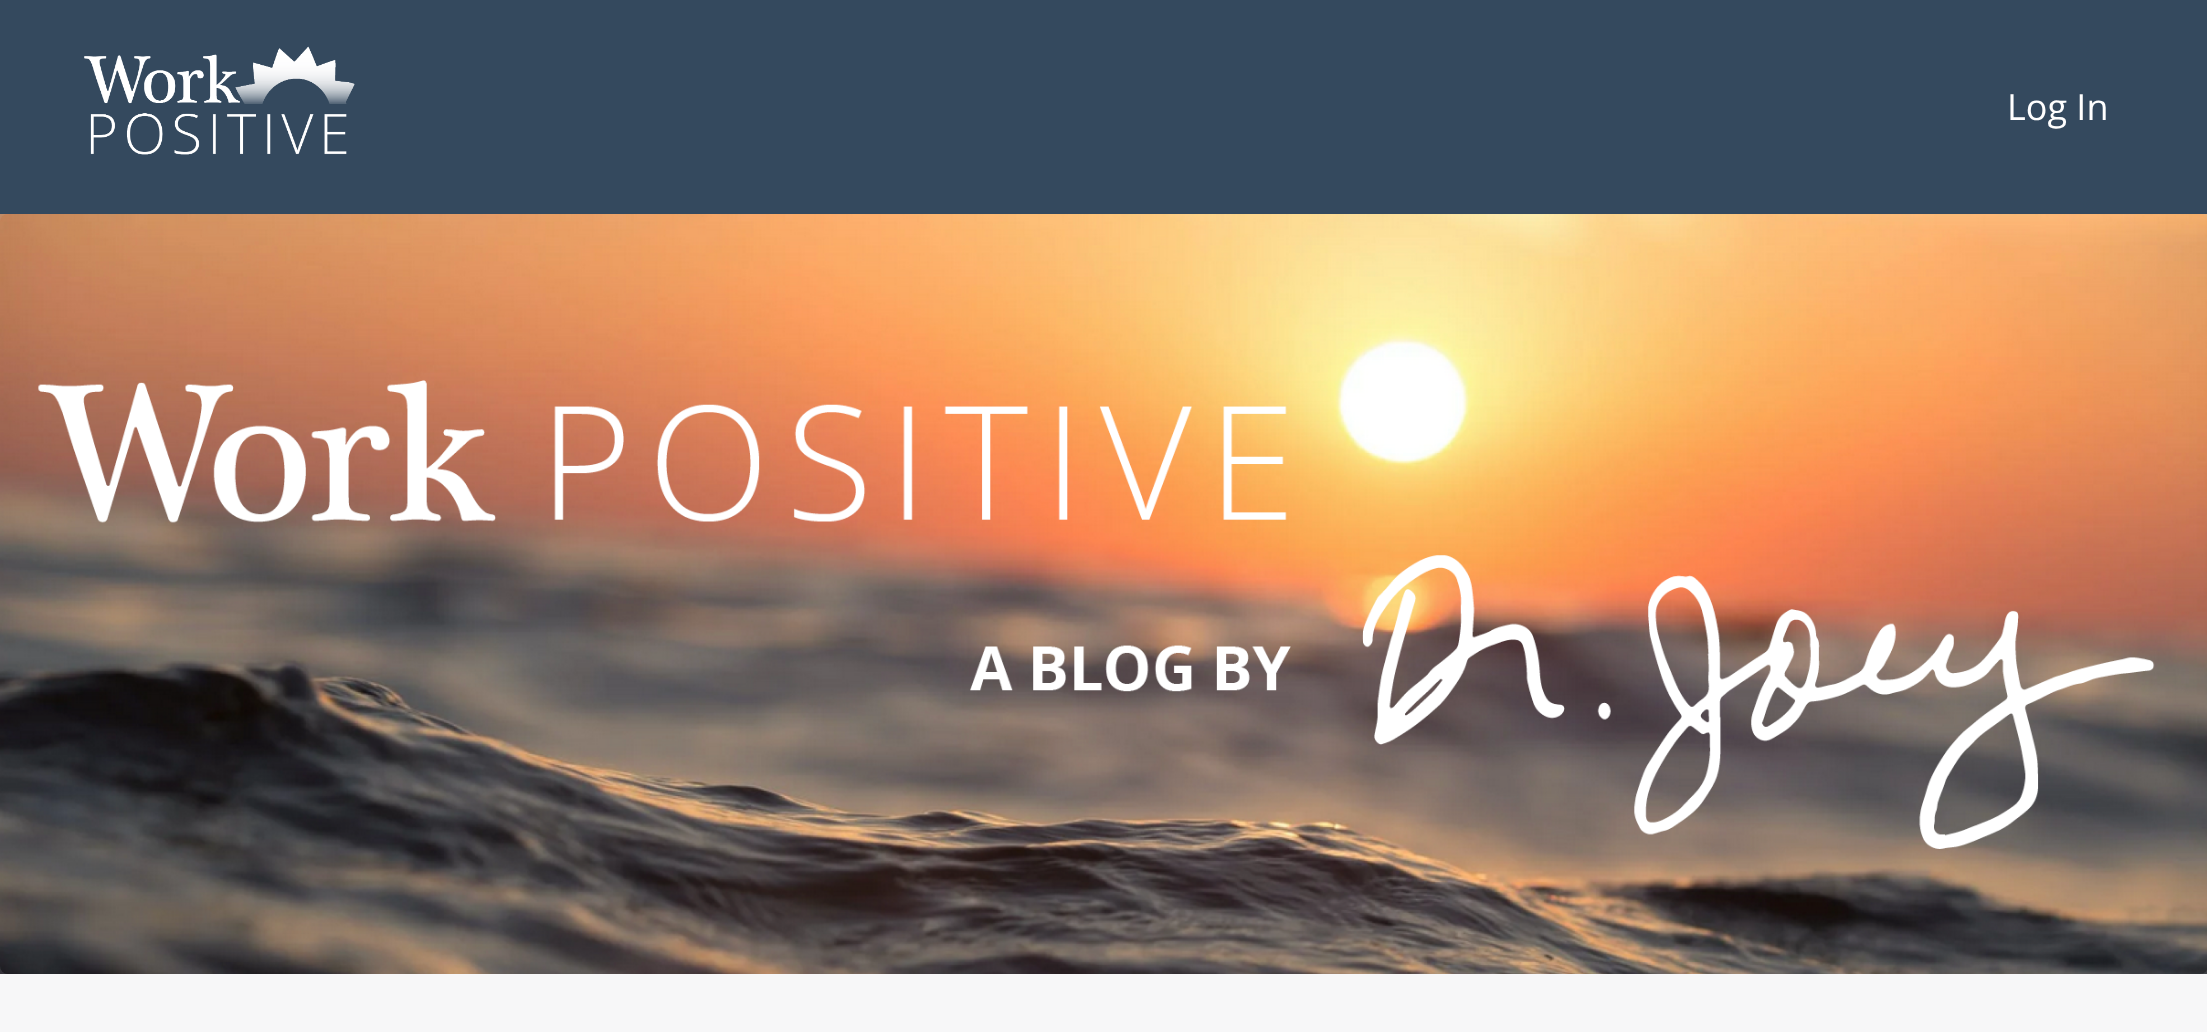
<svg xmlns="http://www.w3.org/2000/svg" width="2207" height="1032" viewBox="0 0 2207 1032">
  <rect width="100%" height="100%" fill="#f7f7f8"/>
  <path d="M0 0h2207v214H0z" fill="#34495e"/>
  <image x="84" y="46" width="271" height="109" href="img/1.png"/>
  <image x="0" y="214" width="2207" height="760" href="img/2.png"/>
  <image x="0" y="214" width="2207" height="760" href="img/3.png"/>
  <text x="2007" y="120" font-family="Open Sans" font-size="36" fill="#fff">Log In</text>
</svg>
